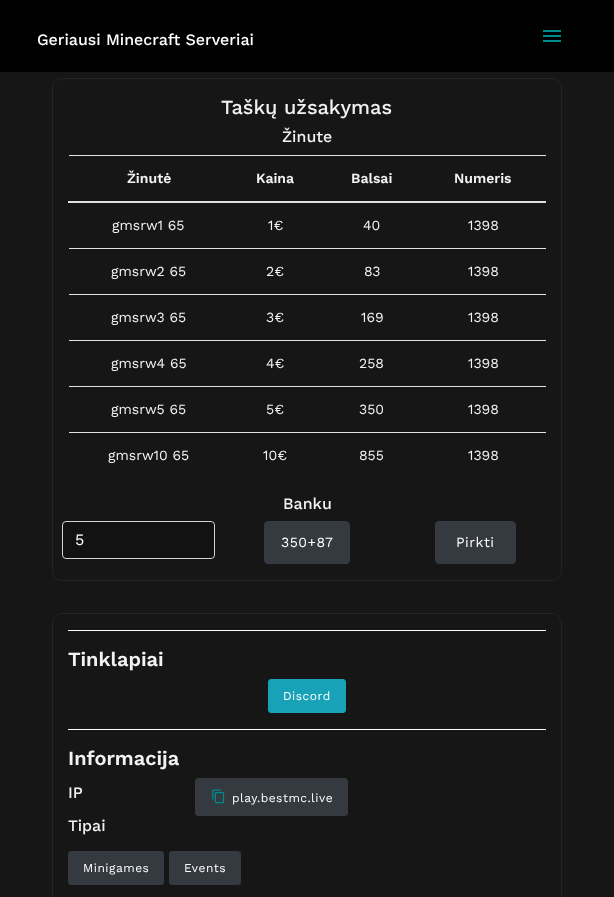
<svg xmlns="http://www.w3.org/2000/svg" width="614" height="897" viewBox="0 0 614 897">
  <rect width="100%" height="100%" fill="#161616"/>
  <path d="M0 0h614v72H0z" fill="#000"/>
  <image x="543" y="30" width="18" height="12" href="img/1.png"/>
  <rect x="52.5" y="78.5" width="509" height="502" rx="9.5" fill="none" stroke="#23232d"/>
  <path d="M69 155h477v1H69z" fill="#dee2e6"/>
  <path d="M68 201h478v2H68z" fill="#dee2e6"/>
  <path d="M69 248h477v1H69z" fill="#dee2e6"/>
  <path d="M69 294h477v1H69z" fill="#dee2e6"/>
  <path d="M69 340h477v1H69z" fill="#dee2e6"/>
  <path d="M69 386h477v1H69z" fill="#dee2e6"/>
  <path d="M69 432h477v1H69z" fill="#dee2e6"/>
  <rect x="62.5" y="521.5" width="152" height="37" rx="3.5" fill="#121212" stroke="#ced4da"/>
  <rect x="264.5" y="521.5" width="85" height="42" rx="3.5" fill="#343a40" stroke="#343a40"/>
  <rect x="435.5" y="521.5" width="80" height="42" rx="3.5" fill="#343a40" stroke="#343a40"/>
  <rect x="52.5" y="613.5" width="509" height="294" rx="9.5" fill="none" stroke="#23232d"/>
  <path d="M68 630h478v1H68z" fill="#fff"/>
  <rect x="268.5" y="679.5" width="77" height="33" rx="2.5" fill="#17a2b8" stroke="#17a2b8"/>
  <path d="M68 729h478v1H68z" fill="#fff"/>
  <rect x="195.5" y="778.5" width="152" height="37" rx="2.5" fill="#343a40" stroke="#343a40"/>
  <image x="212" y="789" width="13" height="15" href="img/2.png"/>
  <rect x="68.5" y="851.5" width="95" height="33" rx="2.5" fill="#343a40" stroke="#343a40"/>
  <rect x="169.5" y="851.5" width="71" height="33" rx="2.5" fill="#343a40" stroke="#343a40"/>
  <text x="37" y="45" font-family="Work Sans" font-size="16" font-weight="500" fill="#fff">Geriausi Minecraft Serveriai</text>
  <text x="221" y="114" font-family="Work Sans" font-size="20" font-weight="500" fill="#f2f2f2">Taškų užsakymas</text>
  <text x="282" y="142" font-family="Work Sans" font-size="16" font-weight="500" fill="#f2f2f2">Žinute</text>
  <g font-family="Work Sans" font-size="14" font-weight="600" fill="#f2f2f2">
    <text x="127" y="183">Žinutė</text>
    <text x="256" y="183">Kaina</text>
    <text x="351" y="183">Balsai</text>
    <text x="454" y="183">Numeris</text>
  </g>
  <g font-family="Work Sans" font-size="14" fill="#f2f2f2">
    <text x="112" y="230">gmsrw1 65</text>
    <text x="268" y="230">1€</text>
    <text x="363" y="230">40</text>
    <text x="468" y="230">1398</text>
    <text x="111" y="276">gmsrw2 65</text>
    <text x="266" y="276">2€</text>
    <text x="364" y="276">83</text>
    <text x="468" y="276">1398</text>
    <text x="111" y="322">gmsrw3 65</text>
    <text x="266" y="322">3€</text>
    <text x="361" y="322">169</text>
    <text x="468" y="322">1398</text>
    <text x="111" y="368">gmsrw4 65</text>
    <text x="266" y="368">4€</text>
    <text x="359" y="368">258</text>
    <text x="468" y="368">1398</text>
    <text x="111" y="414">gmsrw5 65</text>
    <text x="266" y="414">5€</text>
    <text x="359" y="414">350</text>
    <text x="468" y="414">1398</text>
    <text x="108" y="460">gmsrw10 65</text>
    <text x="263" y="460">10€</text>
    <text x="359" y="460">855</text>
    <text x="468" y="460">1398</text>
  </g>
  <text x="283" y="509" font-family="Work Sans" font-size="16" font-weight="500" fill="#f2f2f2">Banku</text>
  <text x="75" y="545" font-family="Work Sans" font-size="16" fill="#fff">5</text>
  <g font-family="Work Sans" font-size="14" letter-spacing="0.5" fill="#fff">
    <text x="281" y="547">350+87</text>
    <text x="456" y="547">Pirkti</text>
  </g>
  <text x="68" y="666" font-family="Work Sans" font-size="20" font-weight="600" fill="#f2f2f2">Tinklapiai</text>
  <text x="283" y="700" font-family="Work Sans" font-size="12" letter-spacing="0.5" fill="#fff">Discord</text>
  <text x="68" y="765" font-family="Work Sans" font-size="20" font-weight="600" fill="#f2f2f2">Informacija</text>
  <text x="68" y="798" font-family="Work Sans" font-size="16" font-weight="500" fill="#f2f2f2">IP</text>
  <text x="232" y="802" font-family="Work Sans" font-size="12" letter-spacing="0.5" fill="#fff">play.bestmc.live</text>
  <text x="68" y="831" font-family="Work Sans" font-size="16" font-weight="500" fill="#f2f2f2">Tipai</text>
  <g font-family="Work Sans" font-size="12" letter-spacing="0.5" fill="#fff">
    <text x="83" y="872">Minigames</text>
    <text x="184" y="872">Events</text>
  </g>
</svg>
